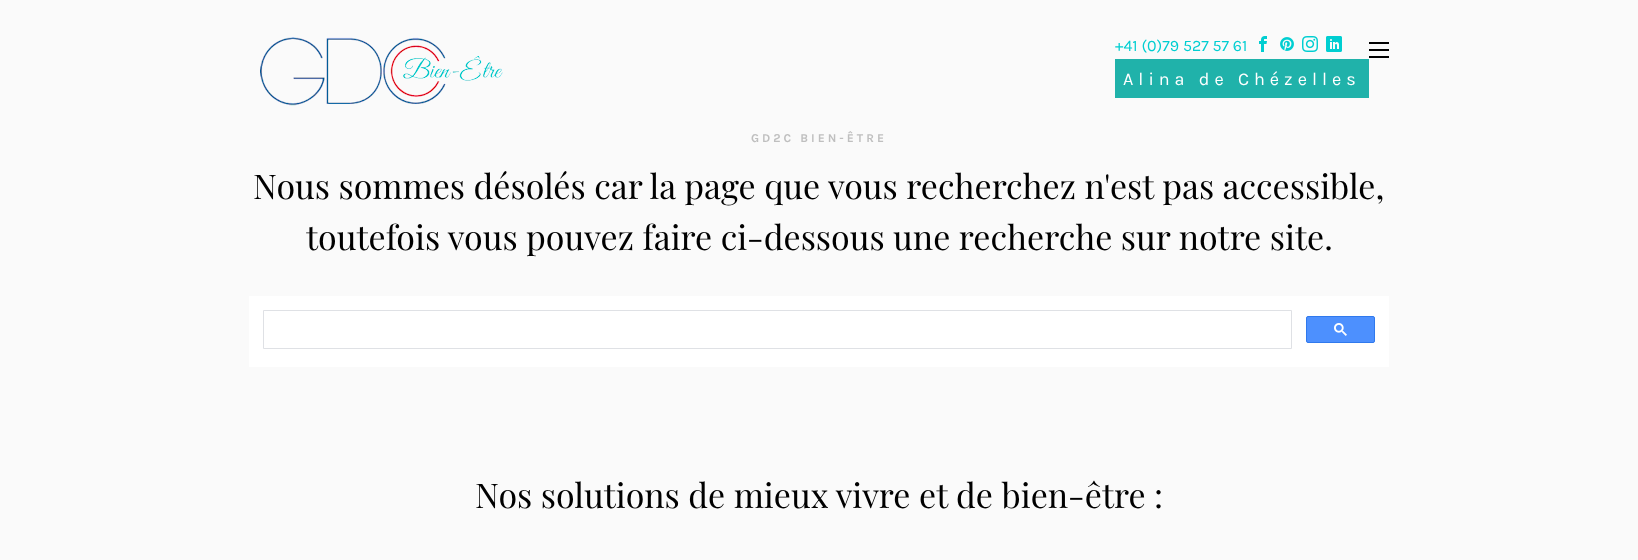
<svg xmlns="http://www.w3.org/2000/svg" width="1638" height="560" viewBox="0 0 1638 560">
  <rect width="100%" height="100%" fill="#fafafa"/>
  <image x="260" y="37" width="243" height="69" href="img/1.png"/>
  <image x="1259" y="36" width="8" height="16" href="img/2.png"/>
  <image x="1280" y="37" width="14" height="14" href="img/3.png"/>
  <image x="1302" y="36" width="16" height="16" href="img/4.png"/>
  <image x="1326" y="36" width="16" height="16" href="img/5.png"/>
  <path d="M1115 59h254v39H1115z" fill="#20b2aa"/>
  <path d="M1369 49h20v2H1369z" fill="#000"/>
  <path d="M1369 42h20v2H1369z" fill="#000"/>
  <path d="M1369 56h20v2H1369z" fill="#000"/>
  <path d="M249 296h1140v71H249z" fill="#fff"/>
  <path d="M263.5 310.5h1028v38H263.5z" fill="none" stroke="#dfe1e5"/>
  <rect x="1306.5" y="316.5" width="68" height="26" rx="1.5" fill="#4d90fe" stroke="#3079ed"/>
  <image x="1334" y="323" width="13" height="13" href="img/6.png"/>
  <text x="1115" y="51" font-family="Karla" font-size="16" fill="#00ced1">+41 (0)79 527 57 61</text>
  <text x="1123" y="85" font-family="Karla" font-size="18" letter-spacing="5" fill="#fff">Alina de Chézelles</text>
  <text x="751" y="142" font-family="Karla" font-size="12" font-weight="bold" letter-spacing="3" fill="#bfbfbf">GD2C BIEN-ÊTRE</text>
  <g font-family="Playfair Display" font-size="34" fill="#000">
    <text x="253" y="199">Nous sommes désolés car la page que vous recherchez n'est pas accessible,</text>
    <text x="306" y="250">toutefois vous pouvez faire ci-dessous une recherche sur notre site.</text>
    <text x="475" y="508">Nos solutions de mieux vivre et de bien-être :</text>
  </g>
</svg>
